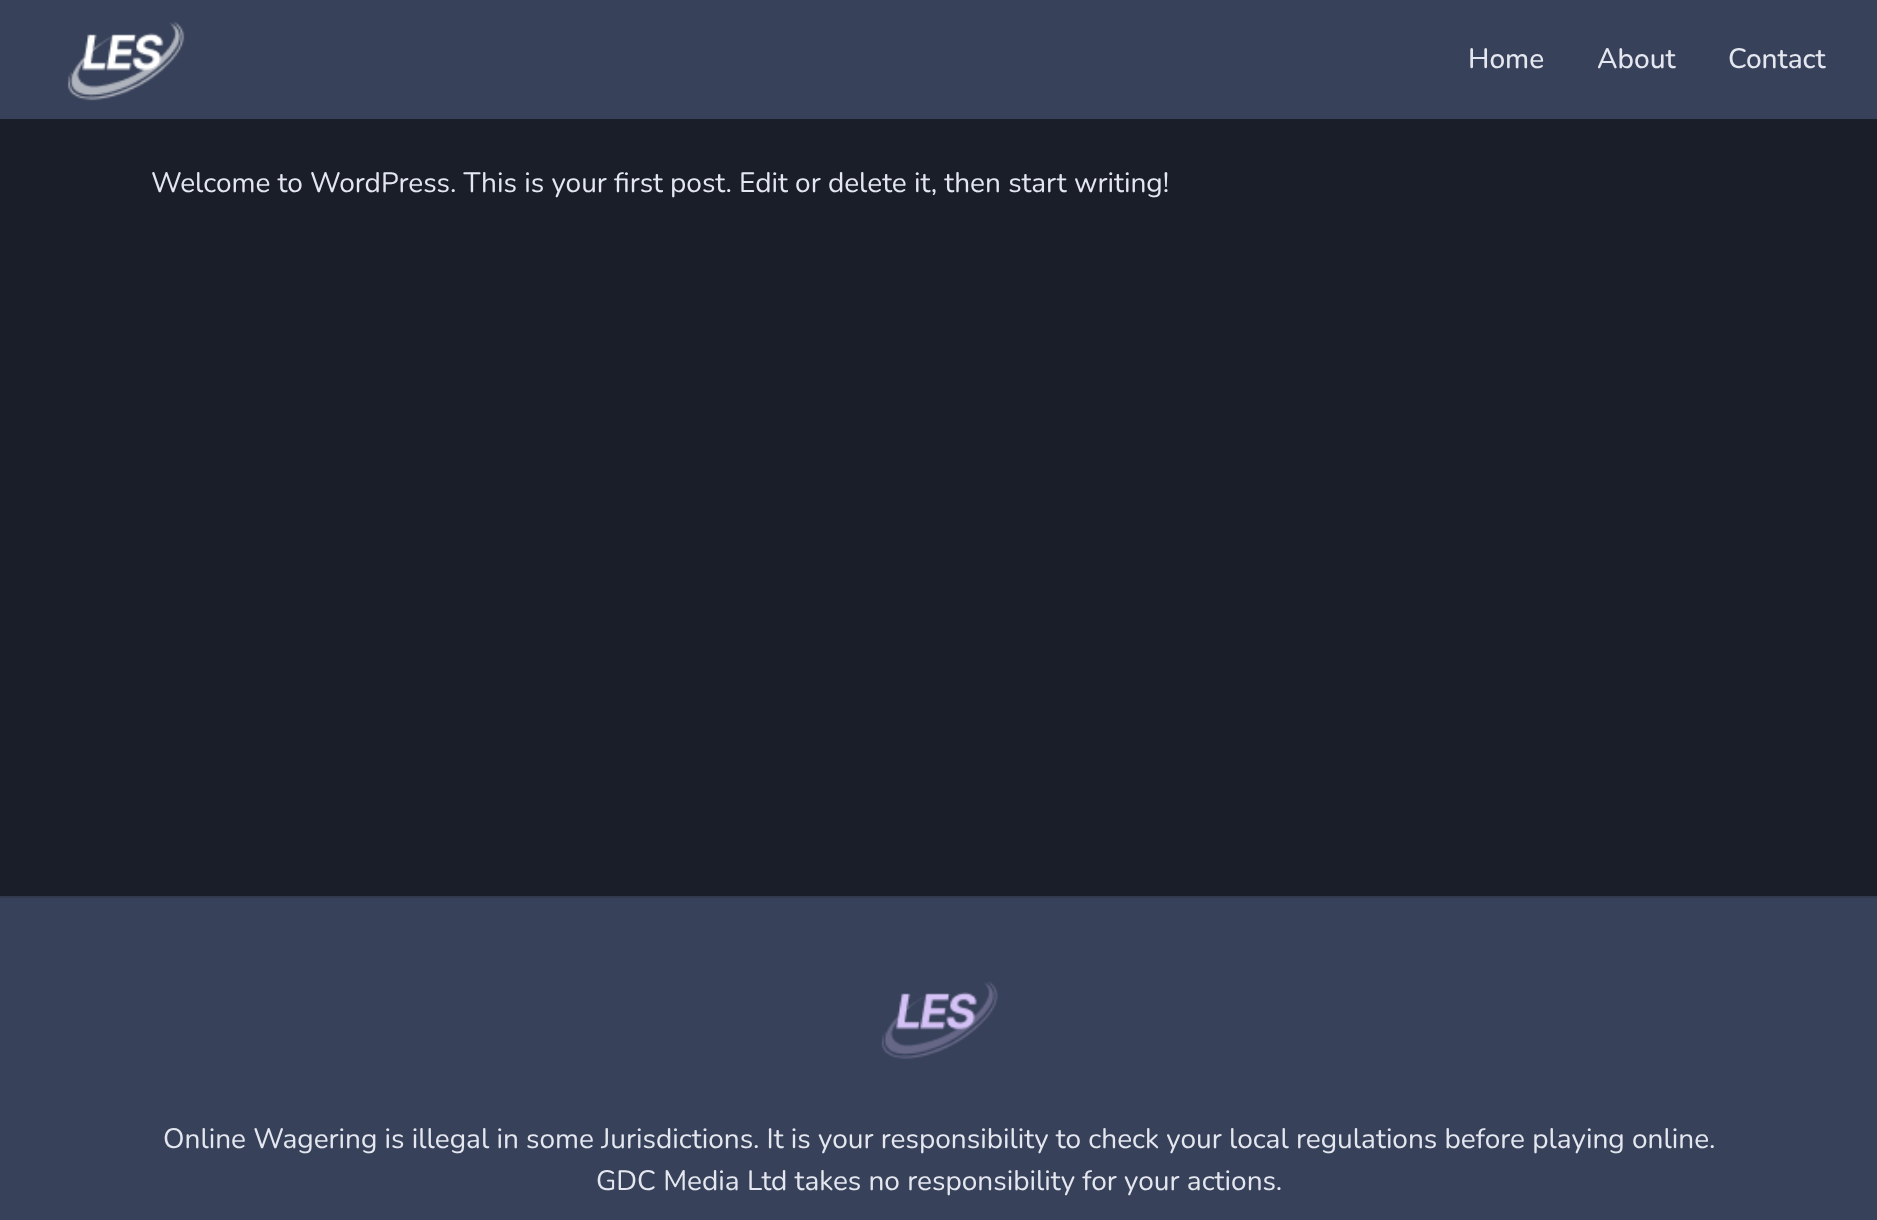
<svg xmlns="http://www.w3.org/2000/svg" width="1877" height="1220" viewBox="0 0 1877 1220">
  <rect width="100%" height="100%" fill="#191e29"/>
  <path d="M0 0h1877v119H0z" fill="#374159"/>
  <image x="67" y="21" width="118" height="80" href="img/1.png"/>
  <path d="M0 898h1877v322H0z" fill="#374159"/>
  <path d="M0 896h1877v2H0z" fill="#323a4d"/>
  <image x="881" y="981" width="117" height="78" href="img/2.png"/>
  <g font-family="Nunito" font-size="28" font-weight="500" fill="#e4e7ef">
    <text x="1468" y="68">Home</text>
    <text x="1597" y="68">About</text>
    <text x="1728" y="68">Contact</text>
  </g>
  <g font-family="Nunito" font-size="28" fill="#e4e7ef">
    <text x="151" y="192">Welcome to WordPress. This is your first post. Edit or delete it, then start writing!</text>
    <text x="163" y="1148">Online Wagering is illegal in some Jurisdictions. It is your responsibility to check your local regulations before playing online.</text>
    <text x="596" y="1190">GDC Media Ltd takes no responsibility for your actions.</text>
  </g>
</svg>
